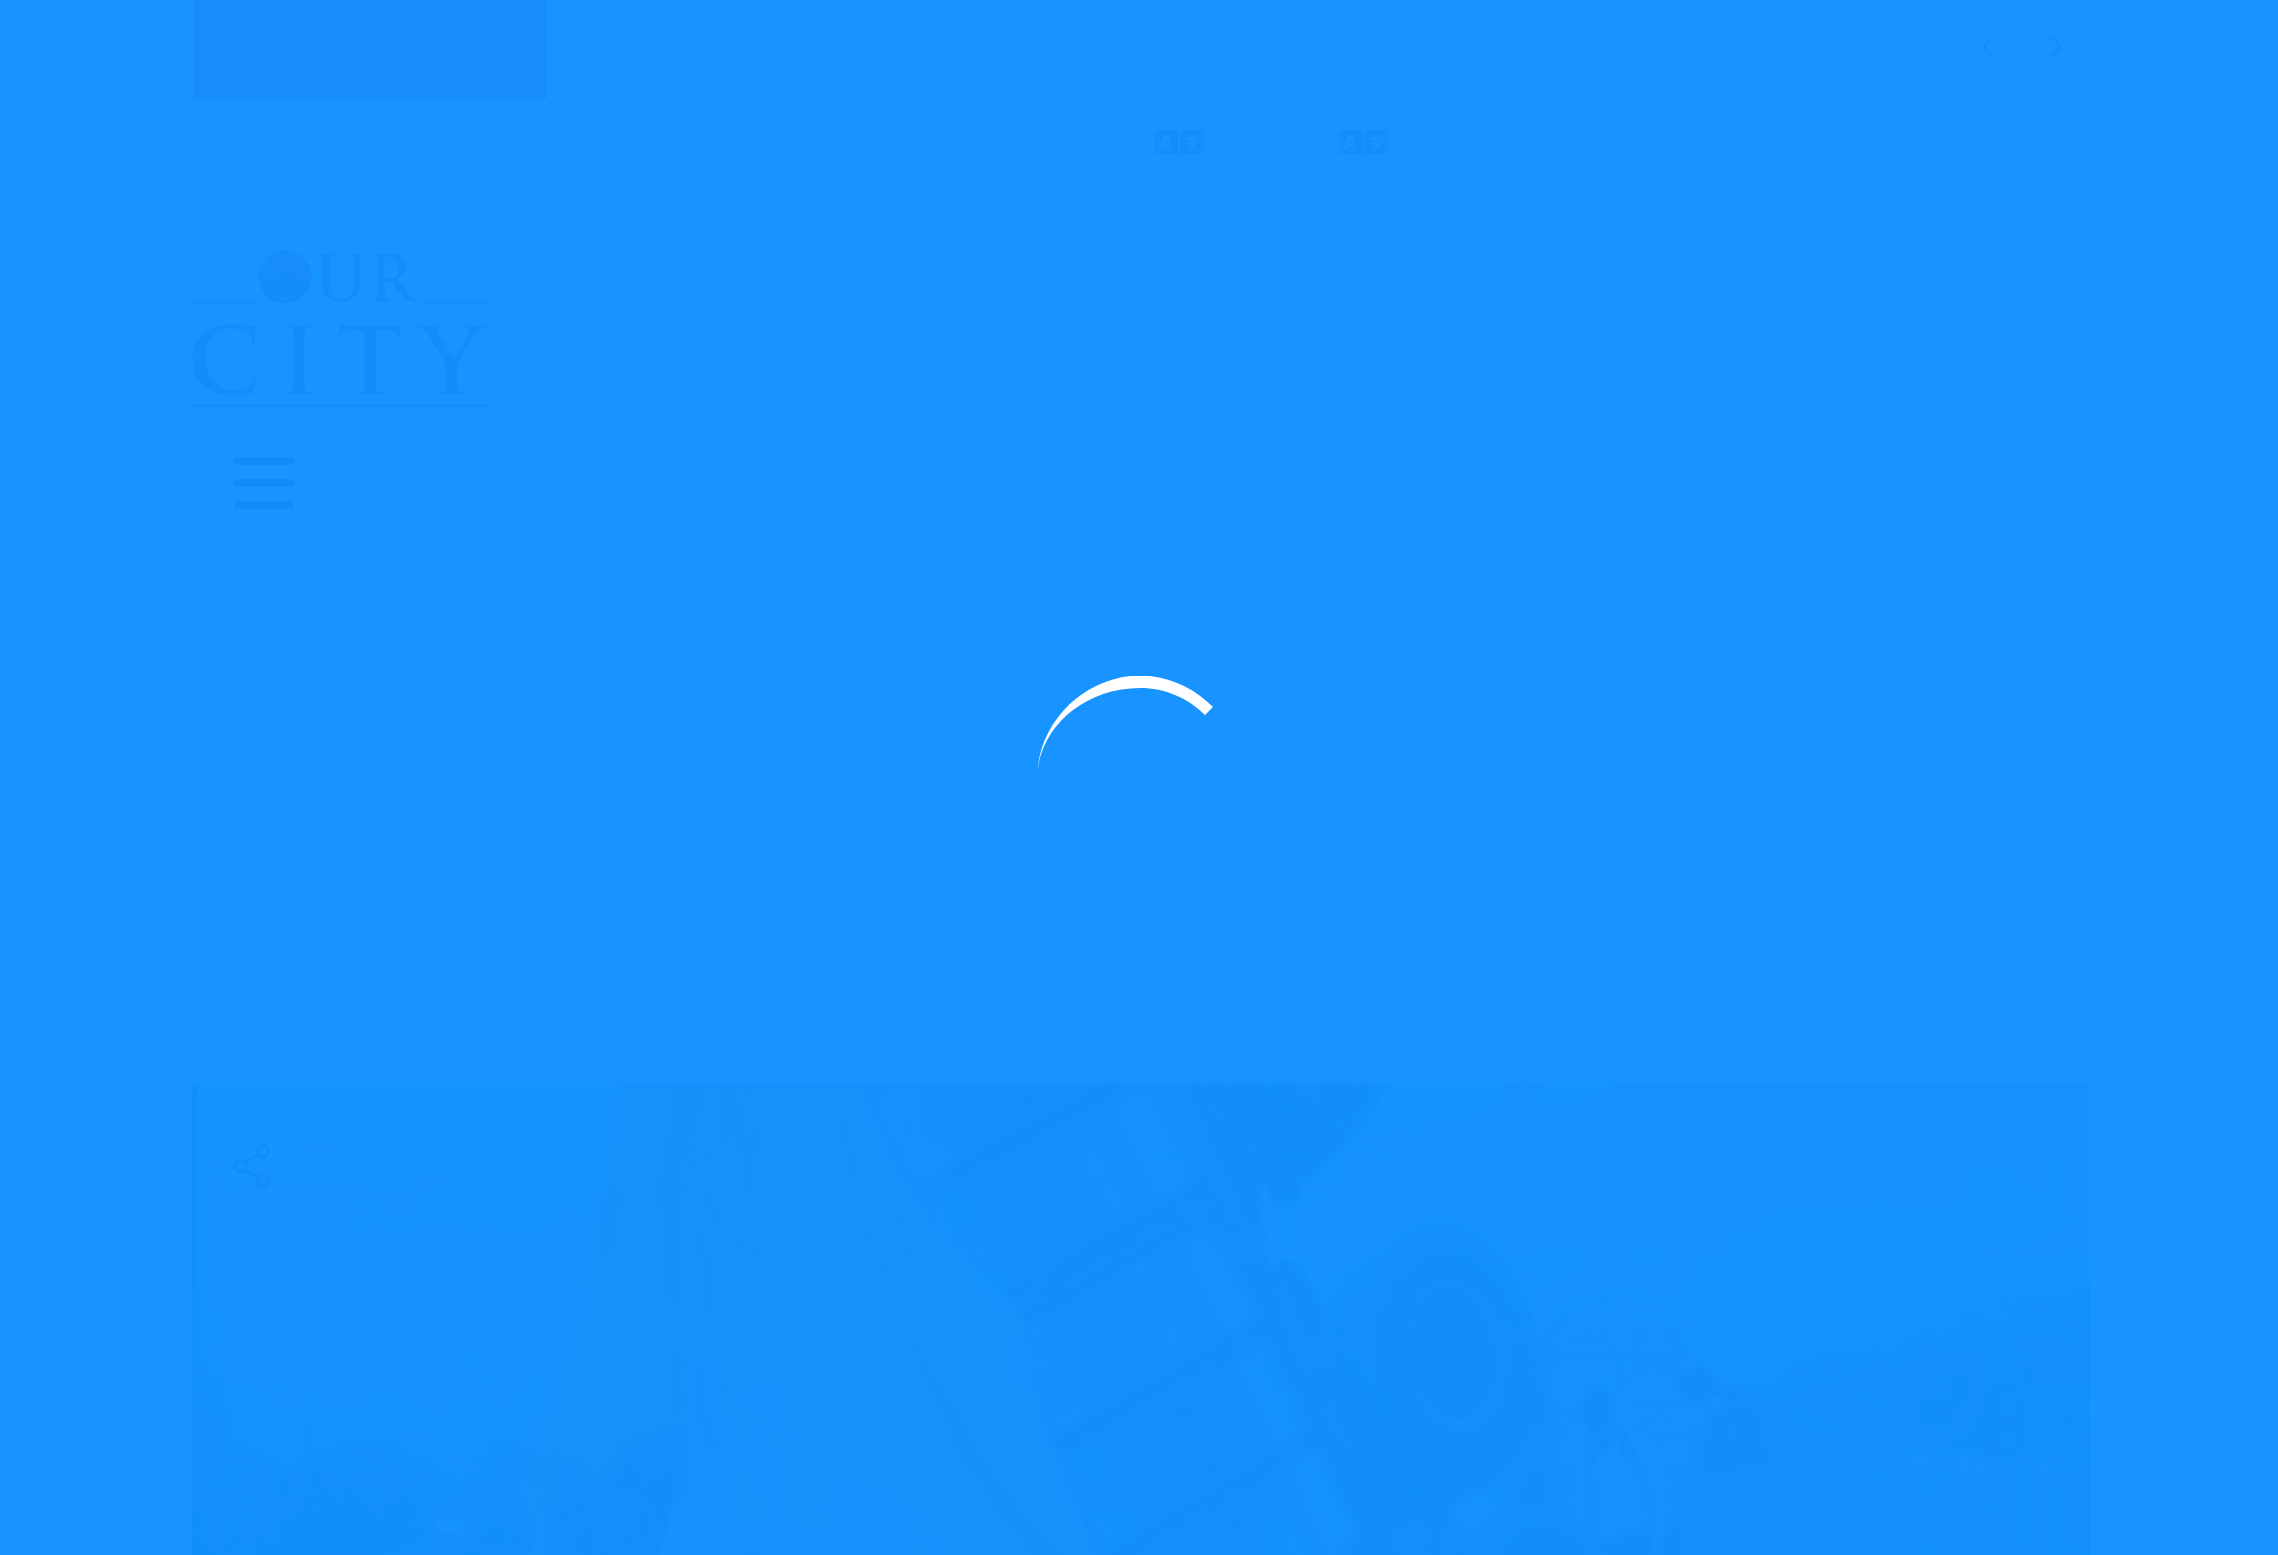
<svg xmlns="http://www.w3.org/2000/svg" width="2278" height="1555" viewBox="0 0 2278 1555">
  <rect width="100%" height="100%" fill="#1794ff"/>
  <path d="M193 0h354v99H193z" fill="#168df8"/>
  <image x="1981" y="36" width="13" height="21" href="img/1.png"/>
  <image x="2050" y="36" width="13" height="21" href="img/2.png"/>
  <image x="1155" y="130" width="49" height="25" href="img/3.png"/>
  <image x="1339" y="130" width="49" height="25" href="img/4.png"/>
  <image x="192" y="250" width="295" height="157" href="img/5.png"/>
  <rect x="234" y="457" width="60" height="8" rx="4" fill="#108df7"/>
  <rect x="234" y="479" width="60" height="8" rx="4" fill="#108df7"/>
  <rect x="234" y="501" width="60" height="8" rx="4" fill="#108df7"/>
  <path d="M1140 688C1083 688 1037 729 1037 780C1037 726 1078 682 1130 676H1150C1175 679 1196 690 1213 707L1205 715C1188 698 1165 688 1140 688Z" fill="#fff"/>
  <image x="192" y="1083" width="1898" height="472" href="img/6.png"/>
  <image x="233" y="1144" width="37" height="44" href="img/7.png"/>
</svg>
